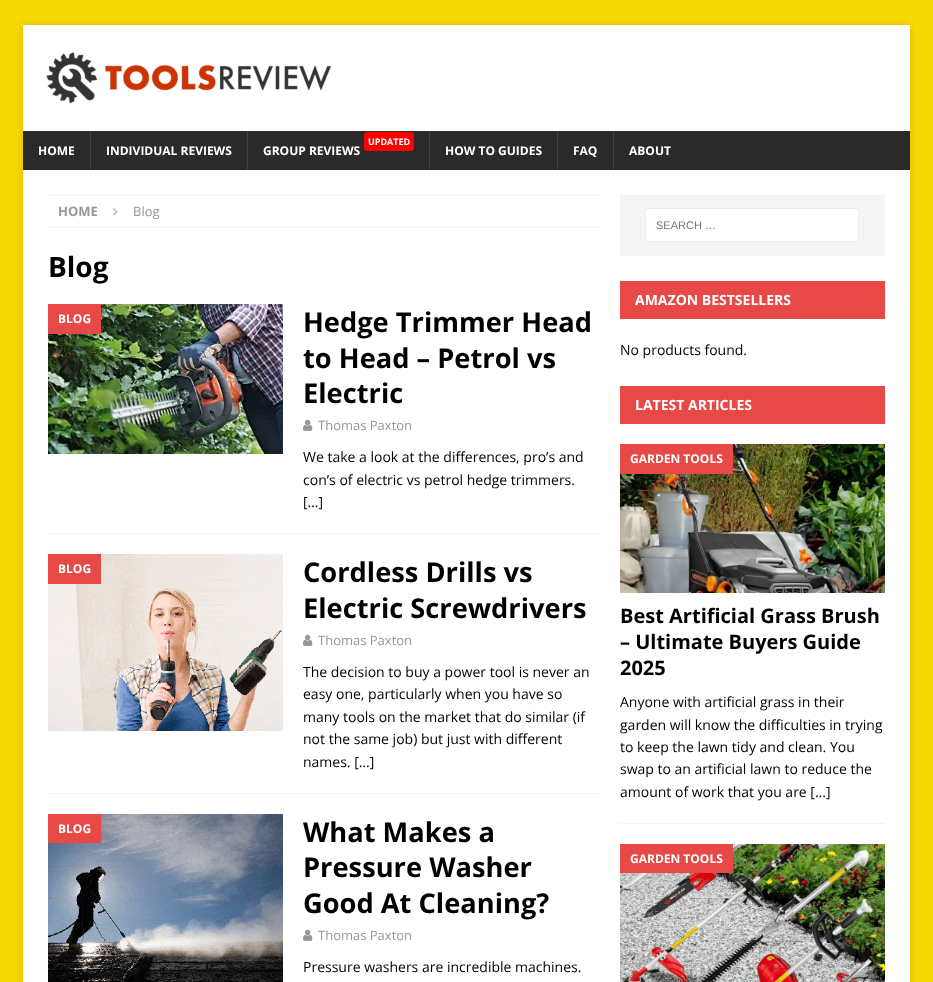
<svg xmlns="http://www.w3.org/2000/svg" width="933" height="982" viewBox="0 0 933 982">
  <rect width="100%" height="100%" fill="#f7d903"/>
  <path d="M23 25h887v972H23z" fill="#3232322b" filter="blur(5px)"/>
  <path d="M23 25h887v106H23z" fill="#fff"/>
  <image x="46" y="52" width="286" height="52" href="img/1.png"/>
  <path d="M23 131h887v39H23z" fill="#2a2a2a"/>
  <path d="M90 131h1v39H90z" fill="#3f3f3f"/>
  <path d="M247 131h1v39H247z" fill="#3f3f3f"/>
  <rect x="364" y="132" width="50" height="19" rx="3" fill="#f00"/>
  <path d="M429 131h1v39H429z" fill="#3f3f3f"/>
  <path d="M557 131h1v39H557z" fill="#3f3f3f"/>
  <path d="M613 131h1v39H613z" fill="#3f3f3f"/>
  <path d="M23 170h887v812H23z" fill="#fff"/>
  <path d="M48 195.5H599" fill="none" stroke="#ebebeb" stroke-dasharray="1 1"/>
  <path d="M48 227.5H599" fill="none" stroke="#ebebeb" stroke-dasharray="1 1"/>
  <image x="113" y="208" width="5" height="8" href="img/2.png"/>
  <path d="M48 533.5H599" fill="none" stroke="#ebebeb" stroke-dasharray="1 1"/>
  <image x="48" y="304" width="235" height="150" href="img/3.png"/>
  <path d="M48 304h53v30H48z" fill="#e64946"/>
  <image x="303" y="419" width="10" height="12" href="img/4.png"/>
  <path d="M48 793.5H599" fill="none" stroke="#ebebeb" stroke-dasharray="1 1"/>
  <image x="48" y="554" width="235" height="177" href="img/5.png"/>
  <path d="M48 554h53v30H48z" fill="#e64946"/>
  <image x="303" y="634" width="10" height="12" href="img/4.png"/>
  <image x="48" y="814" width="235" height="168" href="img/6.png"/>
  <path d="M48 814h53v29H48z" fill="#e64946"/>
  <image x="303" y="929" width="10" height="12" href="img/4.png"/>
  <path d="M620 195h265v61H620z" fill="#f5f5f5"/>
  <path d="M645.5 208.5h213v33H645.5z" fill="#fff" stroke="#ebebeb"/>
  <path d="M620 281h265v38H620z" fill="#e64946"/>
  <path d="M620 386h265v38H620z" fill="#e64946"/>
  <path d="M620 823.5H885" fill="none" stroke="#ebebeb" stroke-dasharray="1 1"/>
  <image x="620" y="444" width="265" height="149" href="img/7.png"/>
  <path d="M620 444h113v30H620z" fill="#e64946"/>
  <image x="620" y="844" width="265" height="138" href="img/8.png"/>
  <path d="M620 844h113v29H620z" fill="#e64946"/>
  <g font-family="Open Sans" font-size="12" font-weight="bold" fill="#fff">
    <text x="38" y="155">HOME</text>
    <text x="106" y="155">INDIVIDUAL REVIEWS</text>
  </g>
  <text x="368" y="145" font-family="Open Sans" font-size="9" font-weight="bold" fill="#fff">UPDATED</text>
  <g font-family="Open Sans" font-size="12" font-weight="bold" fill="#fff">
    <text x="263" y="155">GROUP REVIEWS</text>
    <text x="445" y="155">HOW TO GUIDES</text>
    <text x="573" y="155">FAQ</text>
    <text x="629" y="155">ABOUT</text>
  </g>
  <text x="58" y="216" font-family="Open Sans" font-size="13" font-weight="bold" fill="#979797">HOME</text>
  <text x="133" y="216" font-family="Open Sans" font-size="13" fill="#979797">Blog</text>
  <text x="48" y="277" font-family="Open Sans" font-size="28" font-weight="bold" fill="#000">Blog</text>
  <text x="58" y="323" font-family="Open Sans" font-size="12" font-weight="bold" fill="#fff">BLOG</text>
  <g font-family="Open Sans" font-size="27.25" font-weight="bold" fill="#000">
    <text x="303" y="332">Hedge Trimmer Head</text>
    <text x="303" y="368">to Head – Petrol vs</text>
    <text x="303" y="403">Electric</text>
  </g>
  <text x="318" y="430" font-family="Open Sans" font-size="13" fill="#979797">Thomas Paxton</text>
  <g font-family="Open Sans" font-size="14" fill="#000">
    <text x="303" y="462">We take a look at the differences, pro’s and</text>
    <text x="303" y="485">con’s of electric vs petrol hedge trimmers.</text>
    <text x="303" y="507">[…]</text>
  </g>
  <text x="58" y="573" font-family="Open Sans" font-size="12" font-weight="bold" fill="#fff">BLOG</text>
  <g font-family="Open Sans" font-size="27.25" font-weight="bold" fill="#000">
    <text x="303" y="582">Cordless Drills vs</text>
    <text x="303" y="618">Electric Screwdrivers</text>
  </g>
  <text x="318" y="645" font-family="Open Sans" font-size="13" fill="#979797">Thomas Paxton</text>
  <g font-family="Open Sans" font-size="14" fill="#000">
    <text x="303" y="677">The decision to buy a power tool is never an</text>
    <text x="303" y="699">easy one, particularly when you have so</text>
    <text x="303" y="722">many tools on the market that do similar (if</text>
    <text x="303" y="744">not the same job) but just with different</text>
    <text x="303" y="767">names. […]</text>
  </g>
  <text x="58" y="833" font-family="Open Sans" font-size="12" font-weight="bold" fill="#fff">BLOG</text>
  <g font-family="Open Sans" font-size="27.25" font-weight="bold" fill="#000">
    <text x="303" y="842">What Makes a</text>
    <text x="303" y="877">Pressure Washer</text>
    <text x="303" y="913">Good At Cleaning?</text>
  </g>
  <text x="318" y="940" font-family="Open Sans" font-size="13" fill="#979797">Thomas Paxton</text>
  <text x="303" y="972" font-family="Open Sans" font-size="14" fill="#000">Pressure washers are incredible machines.</text>
  <text x="656" y="229" font-family="Liberation Sans" font-size="11" fill="#757575">SEARCH …</text>
  <text x="635" y="305" font-family="Open Sans" font-size="14" font-weight="bold" fill="#fff">AMAZON BESTSELLERS</text>
  <text x="620" y="355" font-family="Open Sans" font-size="14" fill="#000">No products found.</text>
  <text x="635" y="410" font-family="Open Sans" font-size="14" font-weight="bold" fill="#fff">LATEST ARTICLES</text>
  <text x="630" y="463" font-family="Open Sans" font-size="12" font-weight="bold" fill="#fff">GARDEN TOOLS</text>
  <g font-family="Open Sans" font-size="20" font-weight="bold" fill="#000">
    <text x="620" y="623">Best Artificial Grass Brush</text>
    <text x="620" y="649">– Ultimate Buyers Guide</text>
    <text x="620" y="675">2025</text>
  </g>
  <g font-family="Open Sans" font-size="14" fill="#000">
    <text x="620" y="707">Anyone with artificial grass in their</text>
    <text x="620" y="730">garden will know the difficulties in trying</text>
    <text x="620" y="752">to keep the lawn tidy and clean. You</text>
    <text x="620" y="774">swap to an artificial lawn to reduce the</text>
    <text x="620" y="797">amount of work that you are [...]</text>
  </g>
  <text x="630" y="863" font-family="Open Sans" font-size="12" font-weight="bold" fill="#fff">GARDEN TOOLS</text>
</svg>
